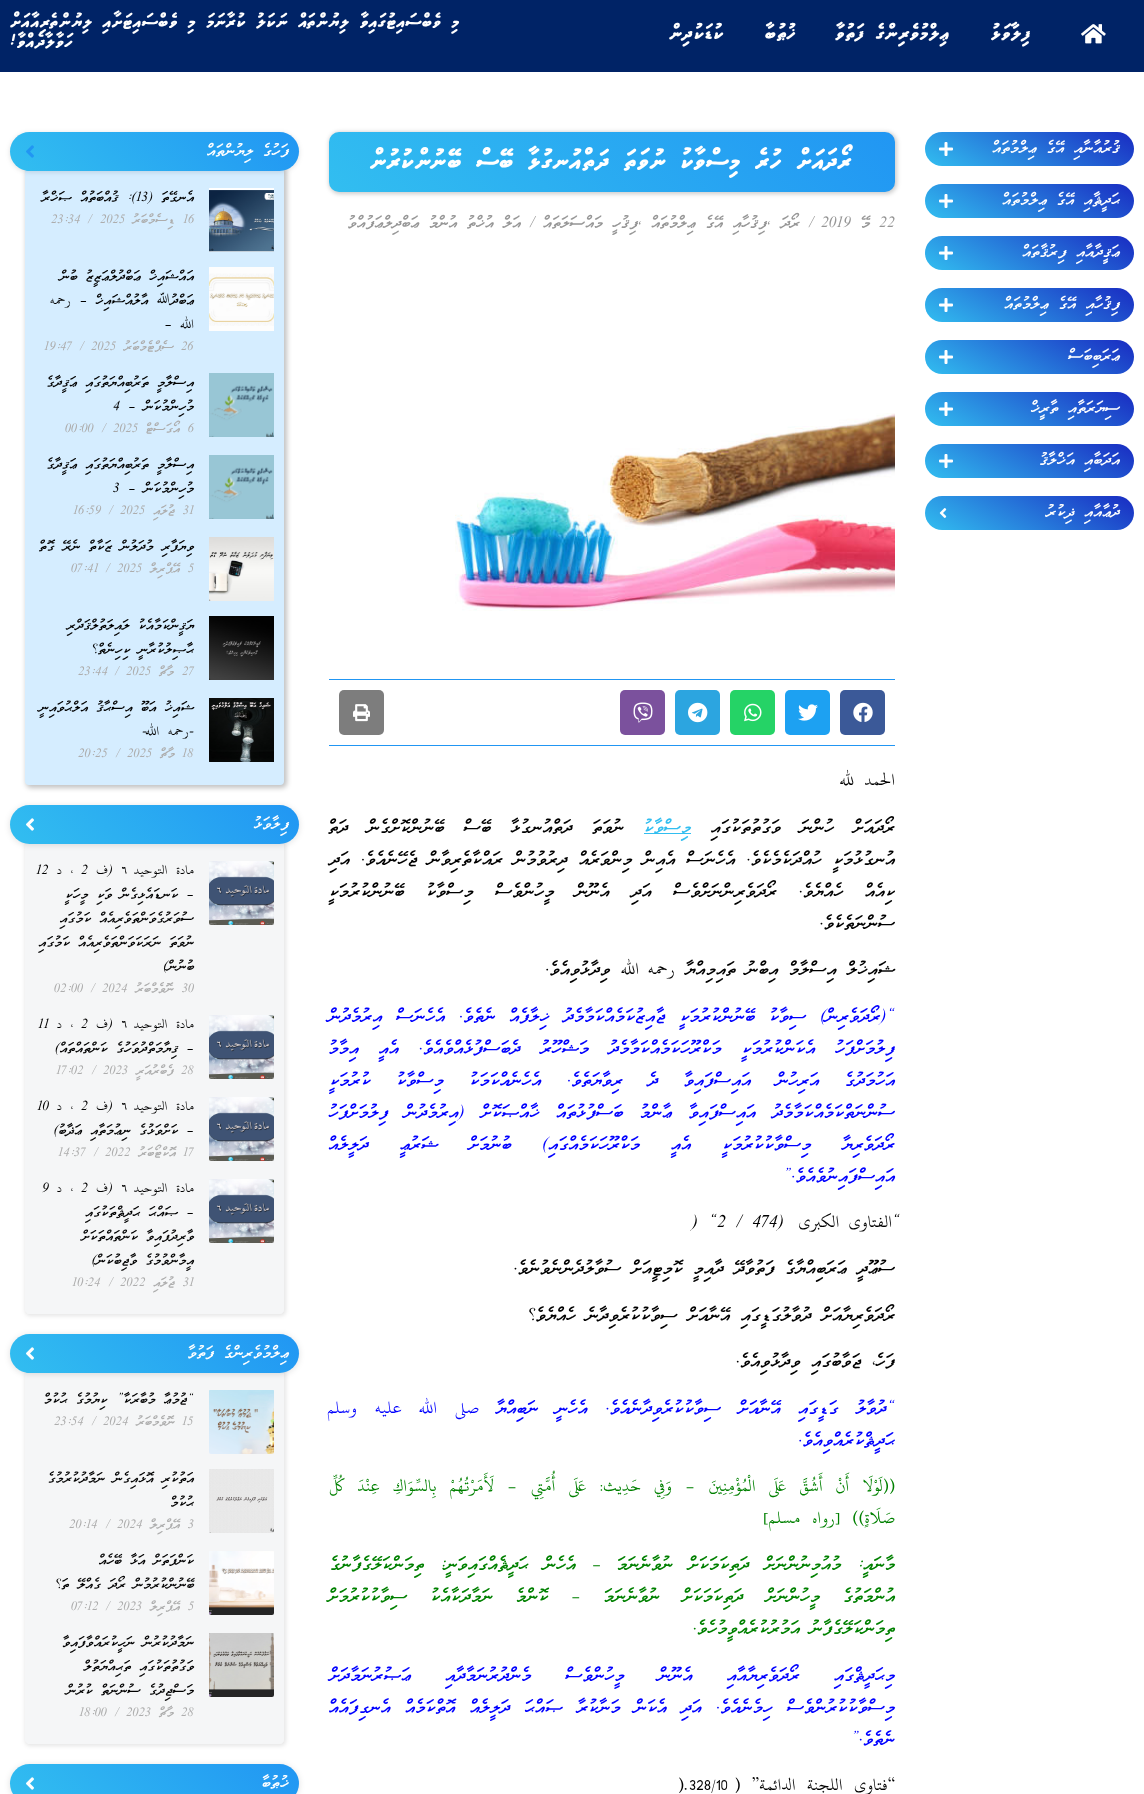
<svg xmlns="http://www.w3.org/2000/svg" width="1144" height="1794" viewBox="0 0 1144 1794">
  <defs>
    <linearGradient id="g1" gradientUnits="userSpaceOnUse" x1="996" y1="207" x2="1063" y2="91"><stop offset="0" stop-color="#32bef0"/><stop offset="1" stop-color="#192bc2"/></linearGradient>
    <linearGradient id="g2" gradientUnits="userSpaceOnUse" x1="996" y1="259" x2="1063" y2="143"><stop offset="0" stop-color="#32bef0"/><stop offset="1" stop-color="#192bc2"/></linearGradient>
    <linearGradient id="g3" gradientUnits="userSpaceOnUse" x1="996" y1="311" x2="1063" y2="195"><stop offset="0" stop-color="#32bef0"/><stop offset="1" stop-color="#192bc2"/></linearGradient>
    <linearGradient id="g4" gradientUnits="userSpaceOnUse" x1="996" y1="363" x2="1063" y2="247"><stop offset="0" stop-color="#32bef0"/><stop offset="1" stop-color="#192bc2"/></linearGradient>
    <linearGradient id="g5" gradientUnits="userSpaceOnUse" x1="996" y1="415" x2="1063" y2="299"><stop offset="0" stop-color="#32bef0"/><stop offset="1" stop-color="#192bc2"/></linearGradient>
    <linearGradient id="g6" gradientUnits="userSpaceOnUse" x1="996" y1="467" x2="1063" y2="351"><stop offset="0" stop-color="#32bef0"/><stop offset="1" stop-color="#192bc2"/></linearGradient>
    <linearGradient id="g7" gradientUnits="userSpaceOnUse" x1="996" y1="519" x2="1063" y2="403"><stop offset="0" stop-color="#32bef0"/><stop offset="1" stop-color="#192bc2"/></linearGradient>
    <linearGradient id="g8" gradientUnits="userSpaceOnUse" x1="996" y1="571" x2="1063" y2="455"><stop offset="0" stop-color="#32bef0"/><stop offset="1" stop-color="#192bc2"/></linearGradient>
    <linearGradient id="g9" gradientUnits="userSpaceOnUse" x1="456" y1="319" x2="769" y2="5.5"><stop offset="0" stop-color="#32bef0"/><stop offset="1" stop-color="#2196f3"/></linearGradient>
    <linearGradient id="g10" gradientUnits="userSpaceOnUse" x1="73" y1="234" x2="237" y2="70"><stop offset="0" stop-color="#32bef0"/><stop offset="1" stop-color="#2196f3"/></linearGradient>
    <clipPath id="clip1"><path d="M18 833H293V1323H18ZM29 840H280C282 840 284 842 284 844V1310C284 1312 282 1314 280 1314H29C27 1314 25 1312 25 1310V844C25 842 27 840 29 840Z" clip-rule="evenodd"/></clipPath>
    <linearGradient id="g11" gradientUnits="userSpaceOnUse" x1="73" y1="907" x2="237" y2="743"><stop offset="0" stop-color="#32bef0"/><stop offset="1" stop-color="#2196f3"/></linearGradient>
    <clipPath id="clip2"><path d="M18 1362H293V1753H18ZM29 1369H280C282 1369 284 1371 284 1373V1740C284 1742 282 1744 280 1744H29C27 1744 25 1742 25 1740V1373C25 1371 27 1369 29 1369Z" clip-rule="evenodd"/></clipPath>
    <linearGradient id="g12" gradientUnits="userSpaceOnUse" x1="73" y1="1436" x2="237" y2="1272"><stop offset="0" stop-color="#32bef0"/><stop offset="1" stop-color="#2196f3"/></linearGradient>
    <linearGradient id="g13" gradientUnits="userSpaceOnUse" x1="73" y1="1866" x2="237" y2="1702"><stop offset="0" stop-color="#32bef0"/><stop offset="1" stop-color="#2196f3"/></linearGradient>
  </defs>
  <rect width="100%" height="100%" fill="#fff"/>
  <path d="M0 0h1144v72H0z" fill="#002366"/>
  <image x="1081" y="24" width="25" height="20" href="img/1.png"/>
  <rect x="925" y="132" width="209" height="34" rx="17" fill="url(#g1)"/>
  <image x="939" y="142" width="14" height="14" href="img/2.png"/>
  <rect x="925" y="184" width="209" height="34" rx="17" fill="url(#g2)"/>
  <image x="939" y="194" width="14" height="14" href="img/2.png"/>
  <rect x="925" y="236" width="209" height="34" rx="17" fill="url(#g3)"/>
  <image x="939" y="246" width="14" height="14" href="img/2.png"/>
  <rect x="925" y="288" width="209" height="34" rx="17" fill="url(#g4)"/>
  <image x="939" y="298" width="14" height="14" href="img/2.png"/>
  <rect x="925" y="340" width="209" height="34" rx="17" fill="url(#g5)"/>
  <image x="939" y="350" width="14" height="14" href="img/2.png"/>
  <rect x="925" y="392" width="209" height="34" rx="17" fill="url(#g6)"/>
  <image x="939" y="402" width="14" height="14" href="img/2.png"/>
  <rect x="925" y="444" width="209" height="34" rx="17" fill="url(#g7)"/>
  <image x="939" y="454" width="14" height="14" href="img/2.png"/>
  <rect x="925" y="496" width="209" height="34" rx="17" fill="url(#g8)"/>
  <image x="939" y="508" width="8" height="10" href="img/3.png"/>
  <rect x="329" y="132" width="568" height="62" rx="11" fill="#00000033" filter="blur(2px)"/>
  <rect x="329" y="132" width="566" height="60" rx="10" fill="url(#g9)"/>
  <image x="455" y="413" width="440" height="198" href="img/4.png"/>
  <path d="M329 679h566v1H329z" fill="#2196f3"/>
  <path d="M329 745h566v1H329z" fill="#2196f3"/>
  <rect x="840" y="690" width="45" height="45" rx="5" fill="#3b5998"/>
  <image x="853" y="702" width="20" height="20" href="img/5.png"/>
  <rect x="785" y="690" width="45" height="45" rx="5" fill="#1da1f2"/>
  <image x="798" y="704" width="20" height="17" href="img/6.png"/>
  <rect x="730" y="690" width="45" height="45" rx="5" fill="#25d366"/>
  <image x="744" y="703" width="18" height="19" href="img/7.png"/>
  <rect x="675" y="690" width="45" height="45" rx="5" fill="#2ca5e0"/>
  <image x="688" y="702" width="20" height="21" href="img/8.png"/>
  <rect x="620" y="690" width="45" height="45" rx="5" fill="#7b519d"/>
  <image x="633" y="702" width="20" height="21" href="img/9.png"/>
  <rect x="339" y="690" width="45" height="45" rx="5" fill="#7d7d7d"/>
  <image x="353" y="704" width="17" height="18" href="img/10.png"/>
  <path d="M644 833h47v1H644z" fill="#32bef0"/>
  <rect x="26" y="168" width="261" height="620" rx="5" fill="#0000003d" filter="blur(2.5px)"/>
  <rect x="25" y="167" width="259" height="618" rx="4" fill="#d5edff"/>
  <rect x="10" y="133" width="289" height="39" rx="19.5" fill="#0000001f" filter="blur(2.5px)"/>
  <rect x="10" y="132" width="289" height="39" rx="19.5" fill="url(#g10)"/>
  <image x="26" y="145" width="8" height="13" href="img/11.png"/>
  <image x="209" y="188" width="65" height="64" href="img/12.png"/>
  <image x="209" y="267" width="65" height="64" href="img/13.png"/>
  <image x="209" y="373" width="65" height="64" href="img/14.png"/>
  <image x="209" y="455" width="65" height="64" href="img/14.png"/>
  <image x="209" y="537" width="65" height="64" href="img/15.png"/>
  <image x="209" y="616" width="65" height="64" href="img/16.png"/>
  <image x="209" y="698" width="65" height="64" href="img/17.png"/>
  <g clip-path="url(#clip1)">
    <rect x="25" y="840" width="261" height="476" rx="5" fill="#0000001a" filter="blur(2px)"/>
  </g>
  <rect x="25" y="840" width="259" height="474" rx="4" fill="#dde0e44a"/>
  <rect x="10" y="806" width="289" height="39" rx="19.5" fill="#0000001f" filter="blur(3px)"/>
  <rect x="10" y="805" width="289" height="39" rx="19.5" fill="url(#g11)"/>
  <image x="26" y="818" width="8" height="13" href="img/18.png"/>
  <image x="209" y="861" width="65" height="64" href="img/19.png"/>
  <image x="209" y="1015" width="65" height="64" href="img/19.png"/>
  <image x="209" y="1097" width="65" height="64" href="img/19.png"/>
  <image x="209" y="1179" width="65" height="64" href="img/19.png"/>
  <g clip-path="url(#clip2)">
    <rect x="25" y="1369" width="261" height="377" rx="5" fill="#0000001a" filter="blur(2px)"/>
  </g>
  <rect x="25" y="1369" width="259" height="375" rx="4" fill="#dde0e44a"/>
  <rect x="10" y="1335" width="289" height="39" rx="19.5" fill="#0000001f" filter="blur(3px)"/>
  <rect x="10" y="1334" width="289" height="39" rx="19.5" fill="url(#g12)"/>
  <image x="26" y="1347" width="8" height="13" href="img/18.png"/>
  <image x="209" y="1390" width="65" height="64" href="img/20.png"/>
  <image x="209" y="1469" width="65" height="64" href="img/21.png"/>
  <image x="209" y="1551" width="65" height="64" href="img/22.png"/>
  <image x="209" y="1633" width="65" height="64" href="img/23.png"/>
  <rect x="10" y="1765" width="289" height="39" rx="19.5" fill="#0000001f" filter="blur(3px)"/>
  <rect x="10" y="1764" width="289" height="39" rx="19.5" fill="url(#g13)"/>
  <image x="26" y="1777" width="8" height="13" href="img/18.png"/>
  <g font-family="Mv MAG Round" font-size="22" font-weight="bold" direction="rtl" fill="#fff">
    <text x="1031" y="38">ފިލާވަޅު</text>
    <text x="950" y="38">ޢިލްމުވެރިންގެ ފަތުވާ</text>
    <text x="796" y="38">ޚުޠުބާ</text>
    <text x="724" y="38">ކުޑަކުދިން</text>
  </g>
  <g font-family="Mv MAG Round" font-size="20" font-weight="bold" direction="rtl" fill="#fff">
    <text x="460" y="26">މި ވެބްސައިޓުގައިވާ ލިޔުންތައް ނަކަލު ކުރާނަމަ މި ވެބްސައިޓަށާއި ލިޔުންތެރިއާއަށް</text>
    <text x="73" y="46">ހަވާލާދެއްވާ!</text>
  </g>
  <g font-family="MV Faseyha" font-size="16" direction="rtl" fill="#fff">
    <text x="1120" y="152">ޤުރުއާނާއި އޭގެ ޢިލްމުތައް</text>
    <text x="1120" y="204">ޙަދީޘާއި އޭގެ ޢިލްމުތައް</text>
    <text x="1120" y="256">ޢަޤީދާއާއި ފިރުޤާތައް</text>
    <text x="1120" y="308">ފިޤުހާއި އޭގެ ޢިލްމުތައް</text>
    <text x="1120" y="360">ޢަރަބިބަސް</text>
    <text x="1120" y="412">ސިޔަރަތާއި ތާރީޚް</text>
    <text x="1120" y="464">އަދަބާއި އަޚްލާޤު</text>
    <text x="1120" y="516">ދުޢާއާއި ޛިކުރު</text>
  </g>
  <text x="852" y="167" font-family="Mv MAG Round" font-size="28" font-weight="bold" direction="rtl" fill="#fff">ރޯދައަށް ހުރެ މިސްވާކު ނުވަތަ ދަތްއުނގުޅާ ބޭސް ބޭނުންކުރުން</text>
  <text x="879" y="227" font-family="MV Faseyha" font-size="16" fill="#969696">22</text>
  <text x="870" y="227" font-family="MV Faseyha" font-size="16" direction="rtl" fill="#969696">މޭ</text>
  <g font-family="MV Faseyha" font-size="16" fill="#969696">
    <text x="821" y="227">2019</text>
    <text x="809" y="227">/</text>
  </g>
  <text x="800" y="227" font-family="MV Faseyha" font-size="16" direction="rtl" fill="#969696">ރޯދަ</text>
  <text x="767" y="227" font-family="MV Faseyha" font-size="16" fill="#969696">,</text>
  <text x="767" y="227" font-family="MV Faseyha" font-size="16" direction="rtl" fill="#969696">ފިޤުހާއި އޭގެ ޢިލްމުތައް</text>
  <text x="638" y="227" font-family="MV Faseyha" font-size="16" fill="#969696">,</text>
  <text x="638" y="227" font-family="MV Faseyha" font-size="16" direction="rtl" fill="#969696">ފިޤުހީ މައްސަލަތައް</text>
  <text x="530" y="227" font-family="MV Faseyha" font-size="16" fill="#969696">/</text>
  <text x="521" y="227" font-family="MV Faseyha" font-size="16" direction="rtl" fill="#969696">އަލް އުޚްތު އުންމު ޢަބްދިލްޢަފުއްވު</text>
  <text x="895" y="785" word-spacing="7" font-family="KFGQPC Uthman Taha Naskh" font-size="18" direction="rtl" fill="#000">الحمد لله</text>
  <text x="895" y="832" word-spacing="9" font-family="MV Faseyha" font-size="18" direction="rtl" fill="#000">ރޯދައަށް ހުންނަ ވަގުތުތަކުގައި</text>
  <text x="691" y="832" font-family="MV Faseyha" font-size="18" direction="rtl" fill="#32bef0">މިސްވާކު</text>
  <g font-family="MV Faseyha" font-size="18" direction="rtl" fill="#000">
    <text x="624" y="832" word-spacing="9">ނުވަތަ ދަތްއުނގުޅާ ބޭސް ބޭނުންކޮށްގެން ދަތް</text>
    <text x="895" y="864" word-spacing="0.5">އުނގުޅުމަކީ ހުއްދަކެމެކެވެ. އެހެނަސް އެއިން މިންވަރެއް ދިރުވުމުން ރައްކާތެރިވާން ޖެހޭނެއެވެ. އަދި</text>
    <text x="895" y="896" word-spacing="11">ކިއެއް ހެއްޔެވެ. ރޯދަވެރިންނަށްވެސް އަދި އެނޫން މީހުންވެސް މިސްވާކު ބޭނުންކުރުމަކީ</text>
    <text x="895" y="928">ސުންނަތެކެވެ.</text>
    <text x="895" y="974">ޝައިޚުލް އިސްލާމް އިބްނު ތައިމިއްޔާ</text>
  </g>
  <g font-family="KFGQPC Uthman Taha Naskh" font-size="18" direction="rtl" fill="#000">
    <text x="675" y="974">رحمه</text>
    <text x="639" y="974">الله</text>
  </g>
  <text x="610" y="974" font-family="MV Faseyha" font-size="18" direction="rtl" fill="#000">ވިދާޅުވިއެވެ.</text>
  <g font-family="MV Faseyha" font-size="18" direction="rtl" fill="#00f">
    <text x="895" y="1021" word-spacing="3.25">“(ރޯދަވެރިން) ސިވާކު ބޭނުންކުރުމަކީ ޖާއިޒުކަމެއްކަމާމެދު ޚިލާފެއް ނެތެވެ. އެހެނަސް އިރުމެދުން</text>
    <text x="895" y="1053" word-spacing="9.25">ފިލުމަށްފަހު އެކަންކުރުމަކީ މަކްރޫހަކަމެއްކަމާމެދު މަޝްހޫރު ދެބަސްފުޅެއްވެއެވެ. އެއީ އިމާމު</text>
    <text x="895" y="1085" word-spacing="14.75">އަހުމަދުގެ އަރިހުން އައިސްފައިވާ ދެ ރިވާޔަތެވެ. އެހެނެއްކަމަކު މިސްވާކު ކުރުމަކީ</text>
    <text x="895" y="1117" word-spacing="6">ސުންނަތްކަމެއްކަމާމެދު އައިސްފައިވާ ޢާންމު ބަސްފުޅުތައް ޚާއްޞަކޮށް (އިރުމެދުން ފިލުމަށްފަހު</text>
    <text x="895" y="1149" word-spacing="20.25">ރޯދަވެރިޔާ މިސްވާކުކުރުމަކީ އެއީ މަކްރޫހަކަމެއްގައި) ބުނުމަށް ޝަރުޢީ ދަލީލެއް</text>
    <text x="895" y="1181">އައިސްފައިނުވެއެވެ.”</text>
  </g>
  <text x="900" y="1227" font-family="MV Faseyha" font-size="18" direction="rtl" fill="#000">“</text>
  <text x="892" y="1227" word-spacing="6" font-family="KFGQPC Uthman Taha Naskh" font-size="18" direction="rtl" fill="#000">الفتاوى الكبرى</text>
  <text x="784" y="1227" font-family="MV Faseyha" font-size="18" direction="rtl" fill="#000">(</text>
  <text x="692" y="1227" font-family="MV Faseyha" font-size="18" fill="#000">) “2 / 474</text>
  <g font-family="MV Faseyha" font-size="18" direction="rtl" fill="#000">
    <text x="895" y="1273">ސުޢޫދީ ޢަރަބިއްޔާގެ ފަތުވާދޭ ދާއިމީ ކޮމިޓީއަށް ސުވާލުދެންނެވުނެވެ.</text>
    <text x="895" y="1320">ރޯދަވެރިޔާއަށް ދުވާލުގަޑީގައި އޭނާއަށް ސިވާކުކުރެވިދާނެ ހެއްޔެވެ؟</text>
    <text x="895" y="1366">ފަހެ، ޖަވާބުގައި ވިދާޅުވިއެވެ.</text>
  </g>
  <text x="895" y="1413" word-spacing="7" font-family="MV Faseyha" font-size="18" direction="rtl" fill="#00f">“ދުވާލު ގަޑީގައި އޭނާއަށް ސިވާކުކުރެވިދާނެއެވެ. އެހެނީ ނަބިއްޔާ</text>
  <g font-family="KFGQPC Uthman Taha Naskh" font-size="18" direction="rtl" fill="#00f">
    <text x="479" y="1413">صلى</text>
    <text x="437" y="1413">الله</text>
    <text x="402" y="1413">عليه</text>
    <text x="357" y="1413">وسلم</text>
  </g>
  <text x="895" y="1445" font-family="MV Faseyha" font-size="18" direction="rtl" fill="#00f">ޙަދީޘްކުރެއްވިއެވެ.</text>
  <text x="895" y="1491" word-spacing="9.5" font-family="KFGQPC Uthman Taha Naskh" font-size="18" direction="rtl" fill="#008000">((لَوْلَا أَنْ أَشُقَّ عَلَى الْمُؤْمِنِينَ</text>
  <text x="695" y="1491" font-family="MV Faseyha" font-size="18" direction="rtl" fill="#008000">–</text>
  <text x="672" y="1491" word-spacing="9.5" font-family="KFGQPC Uthman Taha Naskh" font-size="18" direction="rtl" fill="#008000">وَفِي حَدِيث: عَلَى أُمَّتِي</text>
  <text x="517" y="1491" font-family="MV Faseyha" font-size="18" direction="rtl" fill="#008000">–</text>
  <g font-family="KFGQPC Uthman Taha Naskh" font-size="18" direction="rtl" fill="#008000">
    <text x="494" y="1491" word-spacing="9.5">لَأَمَرْتُهُمْ بِالسِّوَاكِ عِنْدَ كُلِّ</text>
    <text x="895" y="1523" word-spacing="9">صَلَاةٍ)) [رواه مسلم]</text>
  </g>
  <g font-family="MV Faseyha" font-size="18" direction="rtl" fill="#008000">
    <text x="895" y="1569" word-spacing="5">މާނައީ: މުއުމިނުންނަށް ދަތިކަމަކަށް ނުވާނެނަމަ – އެހެން ޙަދީޘެއްގައިވަނީ: ތިމަންކަލޭގެފާނުގެ</text>
    <text x="895" y="1601" word-spacing="12.25">އުންމަތުގެ މީހުންނަށް ދަތިކަމަކަށް ނުވާނެނަމަ – ކޮންމެ ނަމާދަކާއެކު ސިވާކުކުރުމަށް</text>
    <text x="895" y="1633">ތިމަންކަލޭގެފާނު އަމުރުކުރެއްވީމުހެވެ.</text>
  </g>
  <g font-family="MV Faseyha" font-size="18" direction="rtl" fill="#00f">
    <text x="895" y="1680" word-spacing="23.5">މިޙަދީޘްގައި ރޯދަވެރިޔާއާއި އެނޫން މީހުންވެސް މެންދުރުނަމާދާއި ޢަޞުރުނަމާދަށް</text>
    <text x="895" y="1712" word-spacing="3.75">މިސްވާކުކުރުންވެސް ހިމެނެއެވެ. އަދި އެކަން މަނާކުރާ ޞައްޙަ ދަލީލެއް އޮތްކަމެއް އެނގިފައެއް</text>
    <text x="895" y="1744">ނެތެވެ.”</text>
  </g>
  <text x="895" y="1790" word-spacing="8" font-family="KFGQPC Uthman Taha Naskh" font-size="18" direction="rtl" fill="#000">“فتاوى اللجنة الدائمة” (</text>
  <g font-family="KFGQPC Uthman Taha Naskh" font-size="18" fill="#000">
    <text x="689" y="1790">328/10</text>
    <text x="678" y="1790">).</text>
  </g>
  <text x="289" y="155" font-family="MV Faseyha" font-size="16" direction="rtl" fill="#fff">ފަހުގެ ލިޔުންތައް</text>
  <text x="136" y="201" font-family="MV Faseyha" font-size="14" direction="rtl" fill="#000">): ޤުއްބަތުއް ޞަޚްރާ</text>
  <text x="136" y="201" font-family="MV Faseyha" font-size="14" fill="#000">13</text>
  <text x="194" y="201" font-family="MV Faseyha" font-size="14" direction="rtl" fill="#000">އެނގޭތަ (</text>
  <text x="183" y="223" font-family="MV Faseyha" font-size="13" fill="#adadad">16</text>
  <text x="175" y="223" font-family="MV Faseyha" font-size="13" direction="rtl" fill="#adadad">ޑިސެމްބަރު</text>
  <g font-family="MV Faseyha" font-size="13" fill="#adadad">
    <text x="100" y="223">2025</text>
    <text x="88" y="223">/</text>
    <text x="51" y="223">23:34</text>
  </g>
  <g font-family="MV Faseyha" font-size="14" direction="rtl" fill="#000">
    <text x="194" y="280">އައްޝައިޚް ޢަބްދުލްޢަޒީޒު ބުން</text>
    <text x="194" y="304">ޢަބްދުﷲ އާލުއްޝައިޚް –</text>
  </g>
  <g font-family="KFGQPC Uthman Taha Naskh" font-size="14" direction="rtl" fill="#000">
    <text x="71" y="304">رحمه</text>
    <text x="194" y="328">الله</text>
  </g>
  <text x="172" y="328" font-family="MV Faseyha" font-size="14" direction="rtl" fill="#000">–</text>
  <text x="181" y="350" font-family="MV Faseyha" font-size="13" fill="#adadad">26</text>
  <text x="174" y="350" font-family="MV Faseyha" font-size="13" direction="rtl" fill="#adadad">ސެޕްޓެމްބަރު</text>
  <g font-family="MV Faseyha" font-size="13" fill="#adadad">
    <text x="91" y="350">2025</text>
    <text x="80" y="350">/</text>
    <text x="44" y="350">19:47</text>
  </g>
  <g font-family="MV Faseyha" font-size="14" direction="rtl" fill="#000">
    <text x="194" y="386">އިސްލާމީ ތަރުބިއްޔަތުގައި ޢަޤީދާގެ</text>
    <text x="194" y="410">މުހިންމުކަން –</text>
  </g>
  <text x="113" y="410" font-family="MV Faseyha" font-size="14" fill="#000">4</text>
  <text x="188" y="432" font-family="MV Faseyha" font-size="13" fill="#adadad">6</text>
  <text x="180" y="432" font-family="MV Faseyha" font-size="13" direction="rtl" fill="#adadad">އޯގަސްޓް</text>
  <g font-family="MV Faseyha" font-size="13" fill="#adadad">
    <text x="113" y="432">2025</text>
    <text x="102" y="432">/</text>
    <text x="65" y="432">00:00</text>
  </g>
  <g font-family="MV Faseyha" font-size="14" direction="rtl" fill="#000">
    <text x="194" y="468">އިސްލާމީ ތަރުބިއްޔަތުގައި ޢަޤީދާގެ</text>
    <text x="194" y="492">މުހިންމުކަން –</text>
  </g>
  <text x="113" y="492" font-family="MV Faseyha" font-size="14" fill="#000">3</text>
  <text x="183" y="514" font-family="MV Faseyha" font-size="13" fill="#adadad">31</text>
  <text x="175" y="514" font-family="MV Faseyha" font-size="13" direction="rtl" fill="#adadad">ޖުލައި</text>
  <g font-family="MV Faseyha" font-size="13" fill="#adadad">
    <text x="120" y="514">2025</text>
    <text x="109" y="514">/</text>
    <text x="73" y="514">16:59</text>
  </g>
  <text x="194" y="550" font-family="MV Faseyha" font-size="14" direction="rtl" fill="#000">ވިޔަފާރި މުދަލުން ޒަކާތް ނެރޭ ގޮތް</text>
  <text x="188" y="572" font-family="MV Faseyha" font-size="13" fill="#adadad">5</text>
  <text x="180" y="572" font-family="MV Faseyha" font-size="13" direction="rtl" fill="#adadad">އޭޕްރިލް</text>
  <g font-family="MV Faseyha" font-size="13" fill="#adadad">
    <text x="117" y="572">2025</text>
    <text x="106" y="572">/</text>
    <text x="71" y="572">07:41</text>
  </g>
  <g font-family="MV Faseyha" font-size="14" direction="rtl" fill="#000">
    <text x="194" y="629">ޔަޤީންކަމާއެކު ލައިލަތުލްޤަދްރި</text>
    <text x="194" y="653">ޙާޞިލުކުރާނީ ކިހިނެތް؟</text>
  </g>
  <text x="182" y="675" font-family="MV Faseyha" font-size="13" fill="#adadad">27</text>
  <text x="174" y="675" font-family="MV Faseyha" font-size="13" direction="rtl" fill="#adadad">މާޗް</text>
  <g font-family="MV Faseyha" font-size="13" fill="#adadad">
    <text x="126" y="675">2025</text>
    <text x="115" y="675">/</text>
    <text x="78" y="675">23:44</text>
  </g>
  <g font-family="MV Faseyha" font-size="14" direction="rtl" fill="#000">
    <text x="194" y="711">ޝައިޚު އަބޫ އިސްޙާޤު އަލްޙުވައިނީ</text>
    <text x="194" y="735">-</text>
  </g>
  <text x="189" y="735" word-spacing="6" font-family="KFGQPC Uthman Taha Naskh" font-size="14" direction="rtl" fill="#000">رحمه الله</text>
  <text x="147" y="735" font-family="MV Faseyha" font-size="14" direction="rtl" fill="#000">-</text>
  <text x="182" y="757" font-family="MV Faseyha" font-size="13" fill="#adadad">18</text>
  <text x="175" y="757" font-family="MV Faseyha" font-size="13" direction="rtl" fill="#adadad">މާޗް</text>
  <g font-family="MV Faseyha" font-size="13" fill="#adadad">
    <text x="127" y="757">2025</text>
    <text x="116" y="757">/</text>
    <text x="78" y="757">20:25</text>
  </g>
  <text x="289" y="828" font-family="MV Faseyha" font-size="16" direction="rtl" fill="#fff">ފިލާވަޅު</text>
  <text x="194" y="874" word-spacing="6" font-family="KFGQPC Uthman Taha Naskh" font-size="14" direction="rtl" fill="#000">مادة التوحيد</text>
  <text x="121" y="874" font-family="KFGQPC Uthman Taha Naskh" font-size="14" fill="#000">٦</text>
  <text x="113" y="874" font-family="MV Faseyha" font-size="14" direction="rtl" fill="#000">(</text>
  <text x="108" y="874" font-family="KFGQPC Uthman Taha Naskh" font-size="14" direction="rtl" fill="#000">ف</text>
  <text x="81" y="874" font-family="MV Faseyha" font-size="14" fill="#000">2</text>
  <text x="73" y="874" font-family="MV Faseyha" font-size="14" direction="rtl" fill="#000">،</text>
  <text x="62" y="874" font-family="KFGQPC Uthman Taha Naskh" font-size="14" direction="rtl" fill="#000">د</text>
  <text x="36" y="874" font-family="MV Faseyha" font-size="14" fill="#000">12</text>
  <g font-family="MV Faseyha" font-size="14" direction="rtl" fill="#000">
    <text x="194" y="898">– ކަނޑައެޅިގެން ވަކި މީހަކީ</text>
    <text x="194" y="922">ސުވަރުގެވަންތަވެރިއެއް ކަމުގައި</text>
    <text x="194" y="946">ނުވަތަ ނަރަކަވަންތަވެރިއެއް ކަމުގައި</text>
    <text x="194" y="970">ބުނުން)</text>
  </g>
  <text x="182" y="992" font-family="MV Faseyha" font-size="13" fill="#adadad">30</text>
  <text x="174" y="992" font-family="MV Faseyha" font-size="13" direction="rtl" fill="#adadad">ނޮވެމްބަރު</text>
  <g font-family="MV Faseyha" font-size="13" fill="#adadad">
    <text x="102" y="992">2024</text>
    <text x="91" y="992">/</text>
    <text x="54" y="992">02:00</text>
  </g>
  <text x="194" y="1028" word-spacing="6" font-family="KFGQPC Uthman Taha Naskh" font-size="14" direction="rtl" fill="#000">مادة التوحيد</text>
  <text x="121" y="1028" font-family="KFGQPC Uthman Taha Naskh" font-size="14" fill="#000">٦</text>
  <text x="113" y="1028" font-family="MV Faseyha" font-size="14" direction="rtl" fill="#000">(</text>
  <text x="108" y="1028" font-family="KFGQPC Uthman Taha Naskh" font-size="14" direction="rtl" fill="#000">ف</text>
  <text x="81" y="1028" font-family="MV Faseyha" font-size="14" fill="#000">2</text>
  <text x="73" y="1028" font-family="MV Faseyha" font-size="14" direction="rtl" fill="#000">،</text>
  <text x="62" y="1028" font-family="KFGQPC Uthman Taha Naskh" font-size="14" direction="rtl" fill="#000">د</text>
  <text x="38" y="1028" font-family="MV Faseyha" font-size="14" fill="#000">11</text>
  <text x="194" y="1052" font-family="MV Faseyha" font-size="14" direction="rtl" fill="#000">– ޤިޔާމަތްދުވަހުގެ ކަންތައްތައް)</text>
  <text x="181" y="1074" font-family="MV Faseyha" font-size="13" fill="#adadad">28</text>
  <text x="174" y="1074" font-family="MV Faseyha" font-size="13" direction="rtl" fill="#adadad">ފެބްރުއަރީ</text>
  <g font-family="MV Faseyha" font-size="13" fill="#adadad">
    <text x="103" y="1074">2023</text>
    <text x="92" y="1074">/</text>
    <text x="56" y="1074">17:02</text>
  </g>
  <text x="194" y="1110" word-spacing="6" font-family="KFGQPC Uthman Taha Naskh" font-size="14" direction="rtl" fill="#000">مادة التوحيد</text>
  <text x="121" y="1110" font-family="KFGQPC Uthman Taha Naskh" font-size="14" fill="#000">٦</text>
  <text x="113" y="1110" font-family="MV Faseyha" font-size="14" direction="rtl" fill="#000">(</text>
  <text x="108" y="1110" font-family="KFGQPC Uthman Taha Naskh" font-size="14" direction="rtl" fill="#000">ف</text>
  <text x="81" y="1110" font-family="MV Faseyha" font-size="14" fill="#000">2</text>
  <text x="73" y="1110" font-family="MV Faseyha" font-size="14" direction="rtl" fill="#000">،</text>
  <text x="62" y="1110" font-family="KFGQPC Uthman Taha Naskh" font-size="14" direction="rtl" fill="#000">د</text>
  <text x="37" y="1110" font-family="MV Faseyha" font-size="14" fill="#000">10</text>
  <text x="194" y="1134" font-family="MV Faseyha" font-size="14" direction="rtl" fill="#000">– ކަށްވަޅުގެ ނިޢުމަތާއި ޢަޛާބު)</text>
  <text x="183" y="1156" font-family="MV Faseyha" font-size="13" fill="#adadad">17</text>
  <text x="176" y="1156" font-family="MV Faseyha" font-size="13" direction="rtl" fill="#adadad">އޮކްޓޯބަރު</text>
  <g font-family="MV Faseyha" font-size="13" fill="#adadad">
    <text x="105" y="1156">2022</text>
    <text x="94" y="1156">/</text>
    <text x="58" y="1156">14:37</text>
  </g>
  <text x="194" y="1192" word-spacing="6" font-family="KFGQPC Uthman Taha Naskh" font-size="14" direction="rtl" fill="#000">مادة التوحيد</text>
  <text x="121" y="1192" font-family="KFGQPC Uthman Taha Naskh" font-size="14" fill="#000">٦</text>
  <text x="113" y="1192" font-family="MV Faseyha" font-size="14" direction="rtl" fill="#000">(</text>
  <text x="108" y="1192" font-family="KFGQPC Uthman Taha Naskh" font-size="14" direction="rtl" fill="#000">ف</text>
  <text x="81" y="1192" font-family="MV Faseyha" font-size="14" fill="#000">2</text>
  <text x="73" y="1192" font-family="MV Faseyha" font-size="14" direction="rtl" fill="#000">،</text>
  <text x="62" y="1192" font-family="KFGQPC Uthman Taha Naskh" font-size="14" direction="rtl" fill="#000">د</text>
  <text x="42" y="1192" font-family="MV Faseyha" font-size="14" fill="#000">9</text>
  <g font-family="MV Faseyha" font-size="14" direction="rtl" fill="#000">
    <text x="194" y="1216">– ޞައްޙަ ޙަދީޘްތަކުގައި</text>
    <text x="194" y="1240">ވާރިދުފައިވާ ކަންތައްތަކަށް</text>
    <text x="194" y="1264">އީމާންވުމުގެ ވާޖިބުކަން)</text>
  </g>
  <text x="183" y="1286" font-family="MV Faseyha" font-size="13" fill="#adadad">31</text>
  <text x="175" y="1286" font-family="MV Faseyha" font-size="13" direction="rtl" fill="#adadad">ޖުލައި</text>
  <g font-family="MV Faseyha" font-size="13" fill="#adadad">
    <text x="120" y="1286">2022</text>
    <text x="109" y="1286">/</text>
    <text x="72" y="1286">10:24</text>
  </g>
  <text x="289" y="1357" font-family="MV Faseyha" font-size="16" direction="rtl" fill="#fff">ޢިލްމުވެރިންގެ ފަތުވާ</text>
  <text x="194" y="1403" font-family="MV Faseyha" font-size="14" direction="rtl" fill="#000">“ޖުމުޢާ މުބާރަކާ” ކިޔުމުގެ ޙުކުމް</text>
  <text x="182" y="1425" font-family="MV Faseyha" font-size="13" fill="#adadad">15</text>
  <text x="175" y="1425" font-family="MV Faseyha" font-size="13" direction="rtl" fill="#adadad">ނޮވެމްބަރު</text>
  <g font-family="MV Faseyha" font-size="13" fill="#adadad">
    <text x="103" y="1425">2024</text>
    <text x="92" y="1425">/</text>
    <text x="54" y="1425">23:54</text>
  </g>
  <g font-family="MV Faseyha" font-size="14" direction="rtl" fill="#000">
    <text x="194" y="1482">އަތުކުރި އޮޅައިގެން ނަމާދުކުރުމުގެ</text>
    <text x="194" y="1506">ޙުކުމް</text>
  </g>
  <text x="188" y="1528" font-family="MV Faseyha" font-size="13" fill="#adadad">3</text>
  <text x="180" y="1528" font-family="MV Faseyha" font-size="13" direction="rtl" fill="#adadad">އޭޕްރިލް</text>
  <g font-family="MV Faseyha" font-size="13" fill="#adadad">
    <text x="117" y="1528">2024</text>
    <text x="106" y="1528">/</text>
    <text x="69" y="1528">20:14</text>
  </g>
  <g font-family="MV Faseyha" font-size="14" direction="rtl" fill="#000">
    <text x="194" y="1564">ކަންފަތަށް އަޅާ ބޭހެއް</text>
    <text x="194" y="1588">ބޭނުންކުރުމުން ރޯދަ ގެއްލޭ ތަ؟</text>
  </g>
  <text x="188" y="1610" font-family="MV Faseyha" font-size="13" fill="#adadad">5</text>
  <text x="180" y="1610" font-family="MV Faseyha" font-size="13" direction="rtl" fill="#adadad">އޭޕްރިލް</text>
  <g font-family="MV Faseyha" font-size="13" fill="#adadad">
    <text x="117" y="1610">2023</text>
    <text x="106" y="1610">/</text>
    <text x="71" y="1610">07:12</text>
  </g>
  <g font-family="MV Faseyha" font-size="14" direction="rtl" fill="#000">
    <text x="194" y="1646">ނަމާދުކުރުން ނަހީކުރައްވާފައިވާ</text>
    <text x="194" y="1670">ވަގުތުތަކުގައި ތަޙިއްޔަތުލް</text>
    <text x="194" y="1694">މަސްޖިދުގެ ސުންނަތް ކުރުން</text>
  </g>
  <text x="181" y="1716" font-family="MV Faseyha" font-size="13" fill="#adadad">28</text>
  <text x="174" y="1716" font-family="MV Faseyha" font-size="13" direction="rtl" fill="#adadad">މާޗް</text>
  <g font-family="MV Faseyha" font-size="13" fill="#adadad">
    <text x="126" y="1716">2023</text>
    <text x="115" y="1716">/</text>
    <text x="79" y="1716">18:00</text>
  </g>
  <text x="289" y="1787" font-family="MV Faseyha" font-size="16" direction="rtl" fill="#fff">ޚުޠުބާ</text>
</svg>
